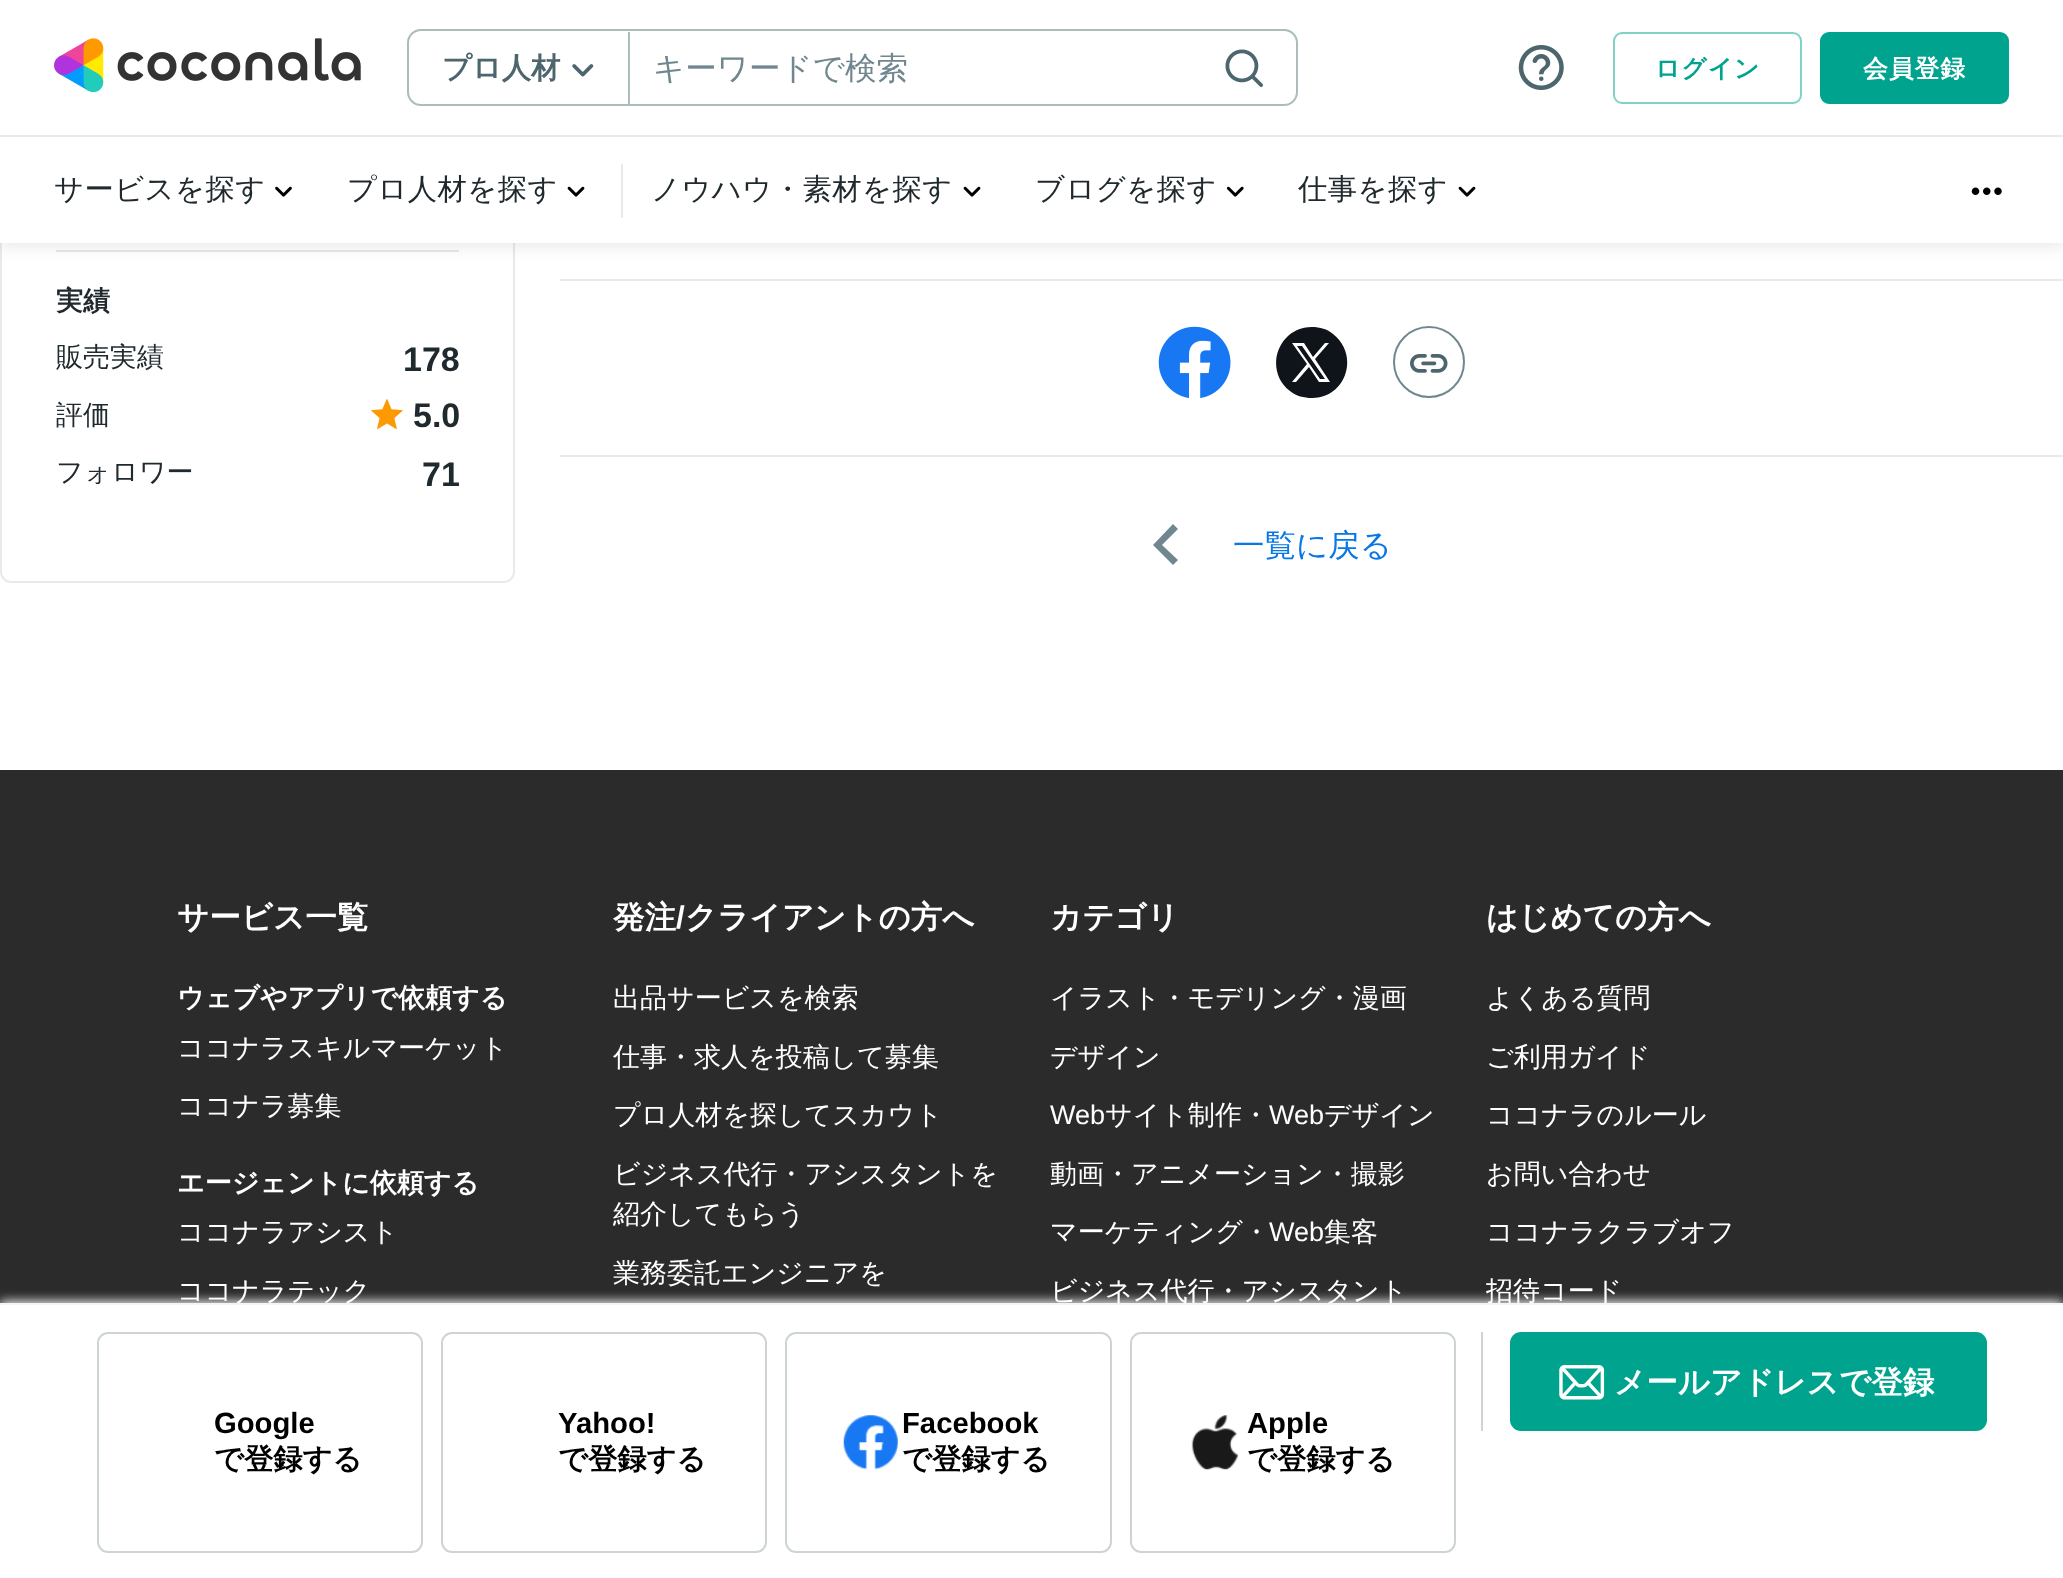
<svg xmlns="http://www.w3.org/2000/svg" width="2063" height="1578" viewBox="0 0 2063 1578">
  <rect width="100%" height="100%" fill="#fff"/>
  <rect x="1" y="-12" width="513" height="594" rx="10" fill="none" stroke="#e7eaeb" stroke-width="2"/>
  <path d="M56 250h403v2H56z" fill="#e7eaeb"/>
  <path d="M0 5h2063v243H0z" fill="#00000014" filter="blur(7px)"/>
  <path d="M0 0h2063v243H0z" fill="#fff"/>
  <image x="54" y="38" width="307" height="54" href="img/1.png"/>
  <rect x="408" y="30" width="889" height="75" rx="13" fill="none" stroke="#acbbbc" stroke-width="2"/>
  <image x="572" y="64" width="22" height="13" href="img/2.png"/>
  <path d="M628 32h2v72H628z" fill="#acbbbc"/>
  <image x="1225" y="49" width="38" height="38" href="img/3.png"/>
  <image x="1518" y="45" width="46" height="45" href="img/4.png"/>
  <rect x="1614" y="33" width="187" height="70" rx="8" fill="none" stroke="#80d1c6" stroke-width="2"/>
  <rect x="1821" y="33" width="187" height="70" rx="8" fill="#00a38d" stroke="#00a38d" stroke-width="2"/>
  <path d="M0 135h2063v2H0z" fill="#e7eaeb"/>
  <image x="275" y="186" width="17" height="11" href="img/5.png"/>
  <image x="567" y="186" width="18" height="11" href="img/6.png"/>
  <path d="M621 164h2v54H621z" fill="#e7eaeb"/>
  <image x="963" y="186" width="18" height="11" href="img/6.png"/>
  <image x="1226" y="186" width="18" height="11" href="img/7.png"/>
  <image x="1458" y="186" width="18" height="11" href="img/6.png"/>
  <image x="1971" y="187" width="31" height="8" href="img/8.png"/>
  <image x="371" y="399" width="32" height="31" href="img/9.png"/>
  <path d="M560 279h1503v2H560z" fill="#e7eaeb"/>
  <image x="1158" y="326" width="73" height="73" href="img/10.png"/>
  <path d="M1312 398C1346 398 1360 355 1333 334C1327 329 1320 327 1312 327C1278 327 1263 370 1290 391C1296 396 1304 398 1312 398ZM1329 343L1315 359L1330 382H1319L1309 367L1296 382H1292L1307 364L1292 343H1304L1313 357L1325 343ZM1320 379H1325L1302 346H1297Z" fill="#0f141a"/>
  <circle cx="1429" cy="362" r="35" fill="none" stroke="#718790" stroke-width="2"/>
  <image x="1410" y="354" width="38" height="19" href="img/11.png"/>
  <path d="M560 455h1503v2H560z" fill="#e7eaeb"/>
  <path d="M1153 545L1173 524L1178 529L1162 545L1178 560L1173 565Z" fill="#718790"/>
  <path d="M0 770h2063v533H0z" fill="#2b2b2b"/>
  <path d="M0 1301h2063v276H0z" fill="#f3f4f5" filter="blur(5.5px)"/>
  <path d="M0 1305h2063v273H0z" fill="#fff"/>
  <path d="M1481 1332h2v99H1481z" fill="#ced4d6"/>
  <rect x="1510" y="1332" width="477" height="99" rx="11" fill="#00a38d"/>
  <image x="1559" y="1365" width="46" height="35" href="img/12.png"/>
  <rect x="98" y="1333" width="324" height="219" rx="10" fill="none" stroke="#ced4d6" stroke-width="2"/>
  <rect x="442" y="1333" width="324" height="219" rx="10" fill="none" stroke="#ced4d6" stroke-width="2"/>
  <rect x="786" y="1333" width="325" height="219" rx="10" fill="none" stroke="#ced4d6" stroke-width="2"/>
  <image x="843" y="1415" width="55" height="55" href="img/13.png"/>
  <rect x="1131" y="1333" width="324" height="219" rx="10" fill="none" stroke="#ced4d6" stroke-width="2"/>
  <image x="1191" y="1415" width="48" height="55" href="img/14.png"/>
  <text x="442" y="78" font-family="WenQuanYi Zen Hei" font-size="29.25" font-weight="bold" fill="#4d656d">プロ人材</text>
  <text x="653" y="79" font-family="WenQuanYi Zen Hei" font-size="31.5" font-weight="500" fill="#718790">キーワードで検索</text>
  <text x="1655" y="77" font-family="WenQuanYi Zen Hei" font-size="24.75" font-weight="bold" letter-spacing="1" fill="#00a38d">ログイン</text>
  <text x="1863" y="77" font-family="WenQuanYi Zen Hei" font-size="24.75" font-weight="bold" letter-spacing="1" fill="#fff">会員登録</text>
  <g font-family="WenQuanYi Zen Hei" font-size="29.25" font-weight="500" letter-spacing="0.5" fill="#202a2e">
    <text x="54" y="199">サービスを探す</text>
    <text x="347" y="199">プロ人材を探す</text>
    <text x="651" y="199">ノウハウ・素材を探す</text>
    <text x="1035" y="199">ブログを探す</text>
    <text x="1298" y="199">仕事を探す</text>
  </g>
  <text x="56" y="310" font-family="WenQuanYi Zen Hei" font-size="27" font-weight="bold" fill="#202a2e">実績</text>
  <text x="56" y="366" font-family="WenQuanYi Zen Hei" font-size="27" font-weight="500" fill="#202a2e">販売実績</text>
  <text x="403" y="371" font-family="Liberation Sans" font-size="34" font-weight="bold" fill="#202a2e">178</text>
  <text x="56" y="424" font-family="WenQuanYi Zen Hei" font-size="27" font-weight="500" fill="#202a2e">評価</text>
  <text x="413" y="427" font-family="Liberation Sans" font-size="34" font-weight="bold" fill="#202a2e">5.0</text>
  <text x="56" y="481" font-family="WenQuanYi Zen Hei" font-size="27" font-weight="500" fill="#202a2e">フォロワー</text>
  <text x="422" y="486" font-family="Liberation Sans" font-size="34" font-weight="bold" fill="#202a2e">71</text>
  <text x="1233" y="556" font-family="WenQuanYi Zen Hei" font-size="31.5" font-weight="500" fill="#0977e5">一覧に戻る</text>
  <text x="1614" y="1393" font-family="WenQuanYi Zen Hei" font-size="31.5" font-weight="bold" fill="#fff">メールアドレスで登録</text>
  <text x="214" y="1433" font-family="Liberation Sans" font-size="29.25" font-weight="bold" fill="#000">Google</text>
  <text x="214" y="1469" font-family="WenQuanYi Zen Hei" font-size="29.25" font-weight="bold" fill="#000">で登録する</text>
  <text x="558" y="1433" font-family="Liberation Sans" font-size="29.25" font-weight="bold" fill="#000">Yahoo!</text>
  <text x="558" y="1469" font-family="WenQuanYi Zen Hei" font-size="29.25" font-weight="bold" fill="#000">で登録する</text>
  <text x="902" y="1433" font-family="Liberation Sans" font-size="29.25" font-weight="bold" fill="#000">Facebook</text>
  <text x="902" y="1469" font-family="WenQuanYi Zen Hei" font-size="29.25" font-weight="bold" fill="#000">で登録する</text>
  <text x="1247" y="1433" font-family="Liberation Sans" font-size="29.25" font-weight="bold" fill="#000">Apple</text>
  <text x="1247" y="1469" font-family="WenQuanYi Zen Hei" font-size="29.25" font-weight="bold" fill="#000">で登録する</text>
  <text x="177" y="928" font-family="WenQuanYi Zen Hei" font-size="31.5" font-weight="bold" fill="#fff">サービス一覧</text>
  <text x="177" y="1007" font-family="WenQuanYi Zen Hei" font-size="27" font-weight="bold" fill="#fff">ウェブやアプリで依頼する</text>
  <g font-family="WenQuanYi Zen Hei" font-size="27" font-weight="500" fill="#fff">
    <text x="177" y="1057">ココナラスキルマーケット</text>
    <text x="177" y="1115">ココナラ募集</text>
  </g>
  <text x="177" y="1192" font-family="WenQuanYi Zen Hei" font-size="27" font-weight="bold" fill="#fff">エージェントに依頼する</text>
  <g font-family="WenQuanYi Zen Hei" font-size="27" font-weight="500" fill="#fff">
    <text x="177" y="1241">ココナラアシスト</text>
    <text x="177" y="1300">ココナラテック</text>
  </g>
  <text x="613" y="928" font-family="WenQuanYi Zen Hei" font-size="31.5" font-weight="bold" fill="#fff">発注</text>
  <text x="676" y="928" font-family="Liberation Sans" font-size="31.5" font-weight="bold" fill="#fff">/</text>
  <text x="685" y="928" font-family="WenQuanYi Zen Hei" font-size="31.5" font-weight="bold" fill="#fff">クライアントの方へ</text>
  <g font-family="WenQuanYi Zen Hei" font-size="27" font-weight="500" fill="#fff">
    <text x="613" y="1007">出品サービスを検索</text>
    <text x="613" y="1066">仕事・求人を投稿して募集</text>
    <text x="613" y="1124">プロ人材を探してスカウト</text>
    <text x="613" y="1183">ビジネス代行・アシスタントを</text>
    <text x="613" y="1223">紹介してもらう</text>
    <text x="613" y="1282">業務委託エンジニアを</text>
  </g>
  <text x="1050" y="928" font-family="WenQuanYi Zen Hei" font-size="31.5" font-weight="bold" fill="#fff">カテゴリ</text>
  <g font-family="WenQuanYi Zen Hei" font-size="27" font-weight="500" fill="#fff">
    <text x="1050" y="1007">イラスト・モデリング・漫画</text>
    <text x="1050" y="1066">デザイン</text>
  </g>
  <text x="1050" y="1124" font-family="Liberation Sans" font-size="27" fill="#fff">Web</text>
  <text x="1105" y="1124" font-family="WenQuanYi Zen Hei" font-size="27" font-weight="500" fill="#fff">サイト制作・</text>
  <text x="1269" y="1124" font-family="Liberation Sans" font-size="27" fill="#fff">Web</text>
  <g font-family="WenQuanYi Zen Hei" font-size="27" font-weight="500" fill="#fff">
    <text x="1324" y="1124">デザイン</text>
    <text x="1050" y="1183">動画・アニメーション・撮影</text>
    <text x="1050" y="1241">マーケティング・</text>
  </g>
  <text x="1269" y="1241" font-family="Liberation Sans" font-size="27" fill="#fff">Web</text>
  <g font-family="WenQuanYi Zen Hei" font-size="27" font-weight="500" fill="#fff">
    <text x="1324" y="1241">集客</text>
    <text x="1050" y="1300">ビジネス代行・アシスタント</text>
  </g>
  <text x="1486" y="928" font-family="WenQuanYi Zen Hei" font-size="31.5" font-weight="bold" fill="#fff">はじめての方へ</text>
  <g font-family="WenQuanYi Zen Hei" font-size="27" font-weight="500" fill="#fff">
    <text x="1486" y="1007">よくある質問</text>
    <text x="1486" y="1066">ご利用ガイド</text>
    <text x="1486" y="1124">ココナラのルール</text>
    <text x="1486" y="1183">お問い合わせ</text>
    <text x="1486" y="1241">ココナラクラブオフ</text>
    <text x="1486" y="1300">招待コード</text>
  </g>
  <path d="M0 1303h2063v2H0z" fill="#f3f4f5"/>
</svg>
